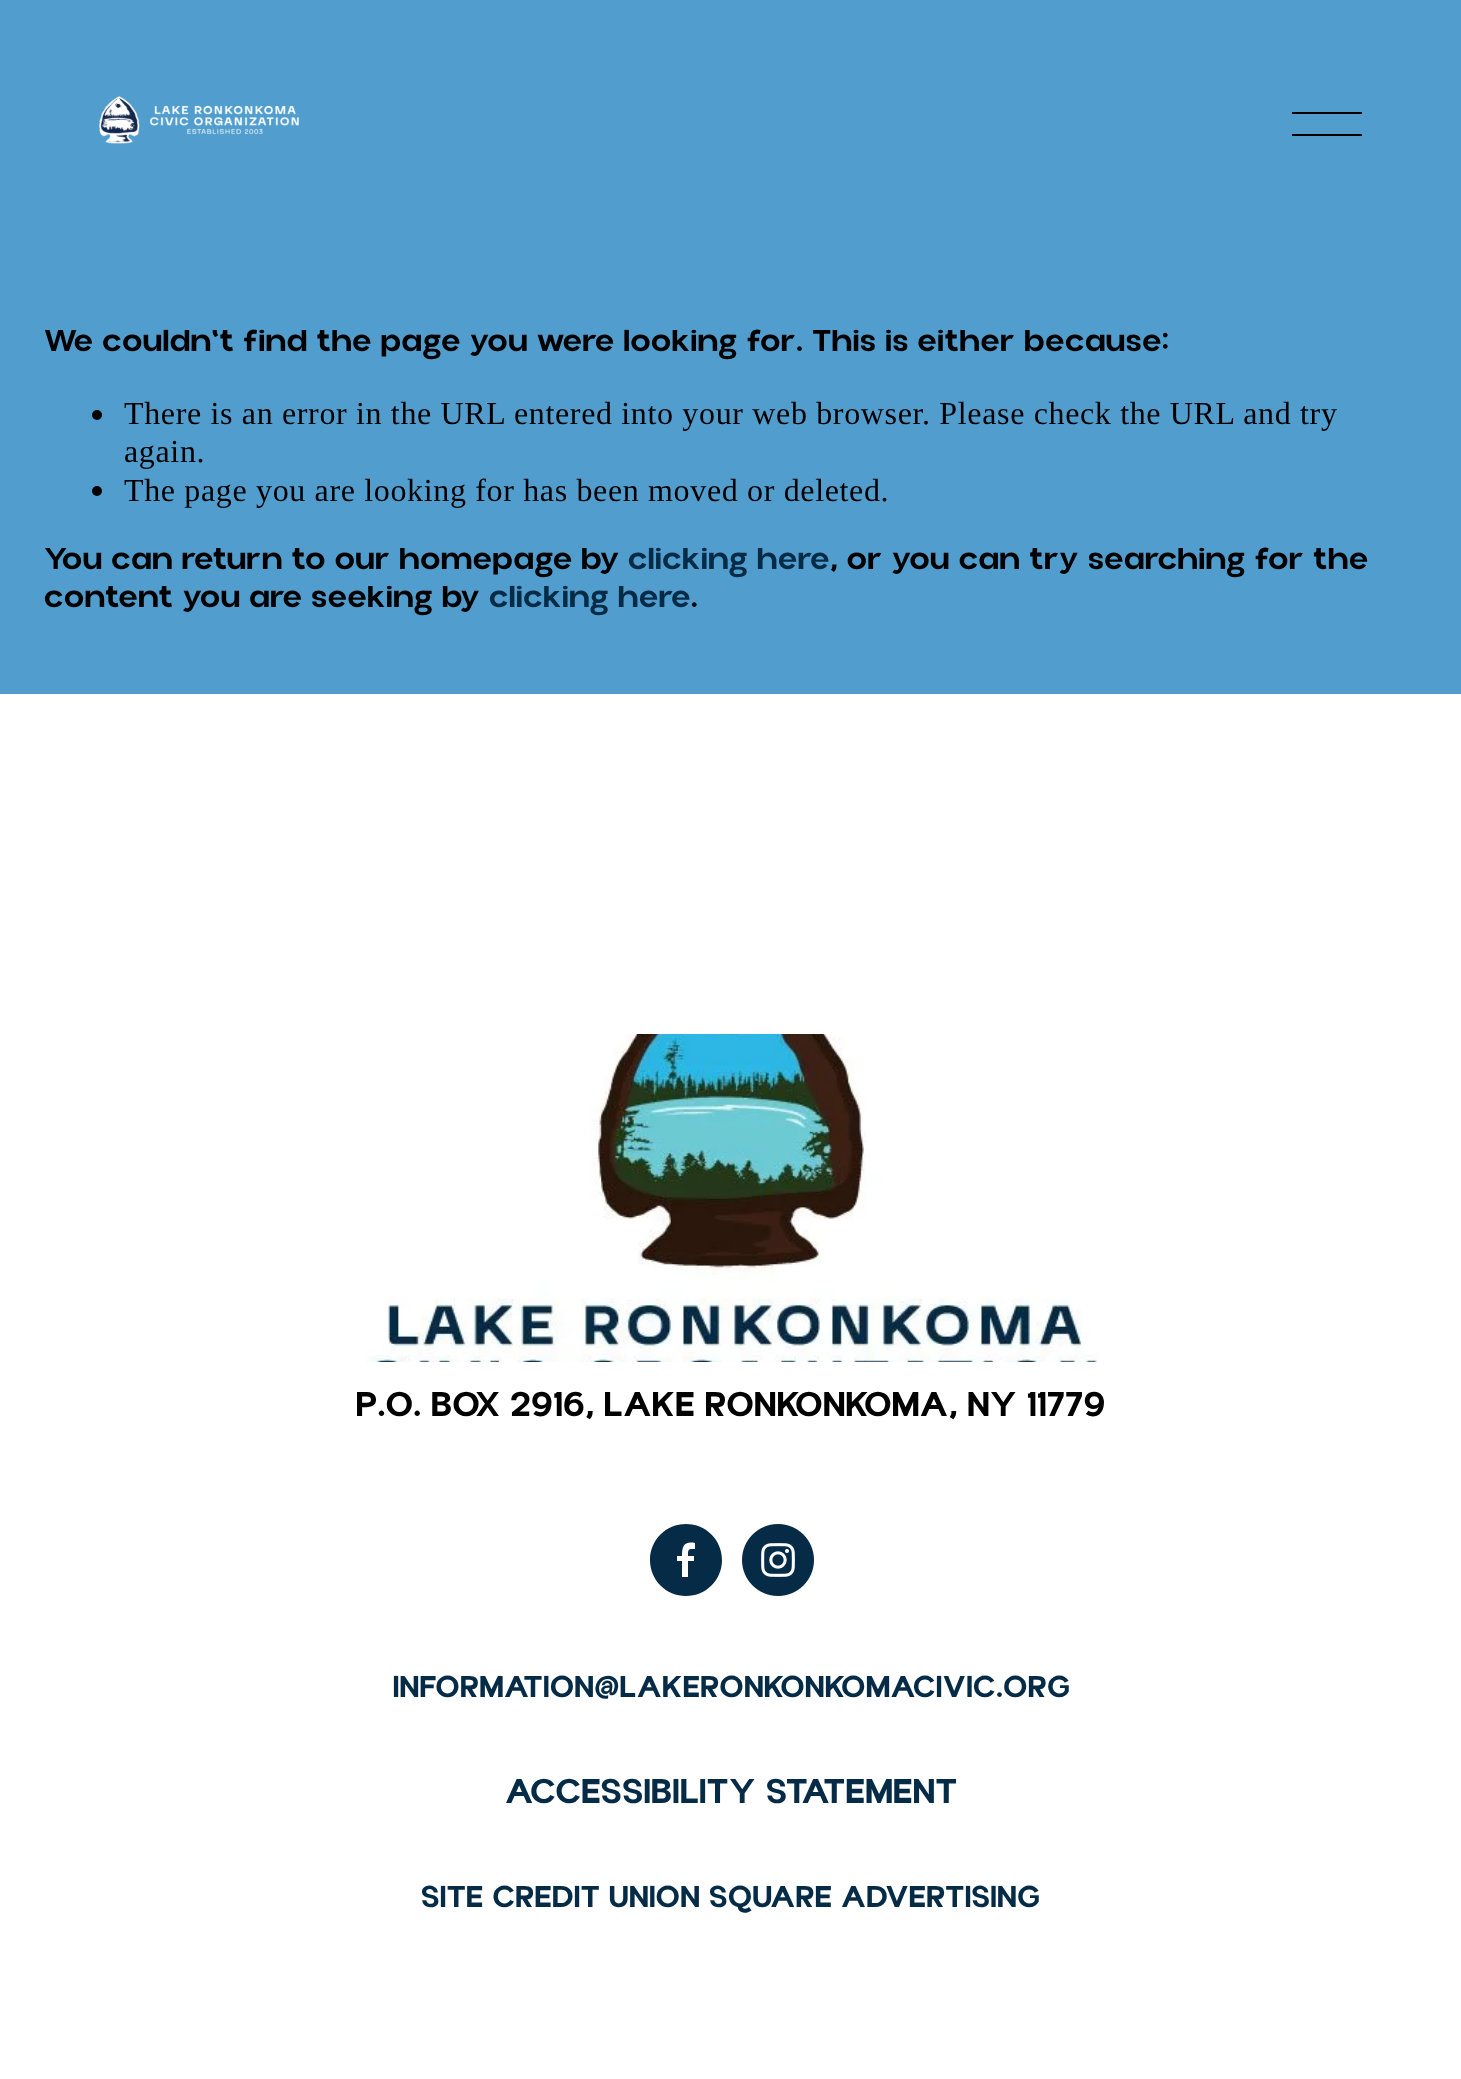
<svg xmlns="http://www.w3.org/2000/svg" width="1461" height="2079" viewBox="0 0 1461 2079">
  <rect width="100%" height="100%" fill="#519ece"/>
  <image x="99" y="96" width="200" height="48" href="img/1.png"/>
  <path d="M1292 112h70v2H1292z" fill="#000"/>
  <path d="M1292 134h70v2H1292z" fill="#000"/>
  <circle cx="97" cy="415" r="5" fill="#000"/>
  <circle cx="97" cy="491" r="5" fill="#000"/>
  <path d="M0 694h1461v1385H0z" fill="#fff"/>
  <image x="367" y="1034" width="731" height="328" href="img/2.png"/>
  <path d="M686 1524C666 1524 650 1540 650 1560C650 1580 666 1596 686 1596C706 1596 722 1580 722 1560C722 1540 706 1524 686 1524ZM695 1549V1543C684 1541 682 1546 682 1556H677V1561H682V1577H688V1561H694V1556H688C688 1549 688 1549 695 1549Z" fill="#052b46" fill-rule="evenodd"/>
  <image x="742" y="1524" width="72" height="72" href="img/3.png"/>
  <text x="44" y="351" font-family="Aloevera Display" font-size="32" font-weight="600" letter-spacing="0.65" fill="#000">We couldn't find the page you were looking for. This is either because:</text>
  <g font-family="Liberation Serif" font-size="32" letter-spacing="0.65" fill="#000">
    <text x="124" y="424">There is an error in the URL entered into your web browser. Please check the URL and try</text>
    <text x="124" y="462">again.</text>
    <text x="124" y="501">The page you are looking for has been moved or deleted.</text>
  </g>
  <text x="44" y="569" font-family="Aloevera Display" font-size="32" font-weight="600" letter-spacing="0.65" fill="#000">You can return to our homepage by</text>
  <text x="628" y="569" font-family="Aloevera Display" font-size="32" font-weight="600" letter-spacing="0.65" fill="#052b46">clicking here</text>
  <g font-family="Aloevera Display" font-size="32" font-weight="600" letter-spacing="0.65" fill="#000">
    <text x="830" y="569">, or you can try searching for the</text>
    <text x="44" y="607">content you are seeking by</text>
  </g>
  <text x="489" y="607" font-family="Aloevera Display" font-size="32" font-weight="600" letter-spacing="0.65" fill="#052b46">clicking here</text>
  <text x="691" y="607" font-family="Aloevera Display" font-size="32" font-weight="600" letter-spacing="0.65" fill="#000">.</text>
  <text x="356" y="1416" font-family="Aloevera Display" font-size="36.3" font-weight="600" letter-spacing="0.65" fill="#000">P.O. BOX 2916, LAKE RONKONKOMA, NY 11779</text>
  <text x="393" y="1697" font-family="Aloevera Display" font-size="32" font-weight="600" letter-spacing="0.65" fill="#052b46">INFORMATION@LAKERONKONKOMACIVIC.ORG</text>
  <text x="505" y="1803" font-family="Aloevera Display" font-size="36.3" font-weight="600" letter-spacing="0.65" fill="#052b46">ACCESSIBILITY STATEMENT</text>
  <text x="421" y="1907" font-family="Aloevera Display" font-size="32" font-weight="600" letter-spacing="0.65" fill="#052b46">SITE CREDIT UNION SQUARE ADVERTISING</text>
</svg>
